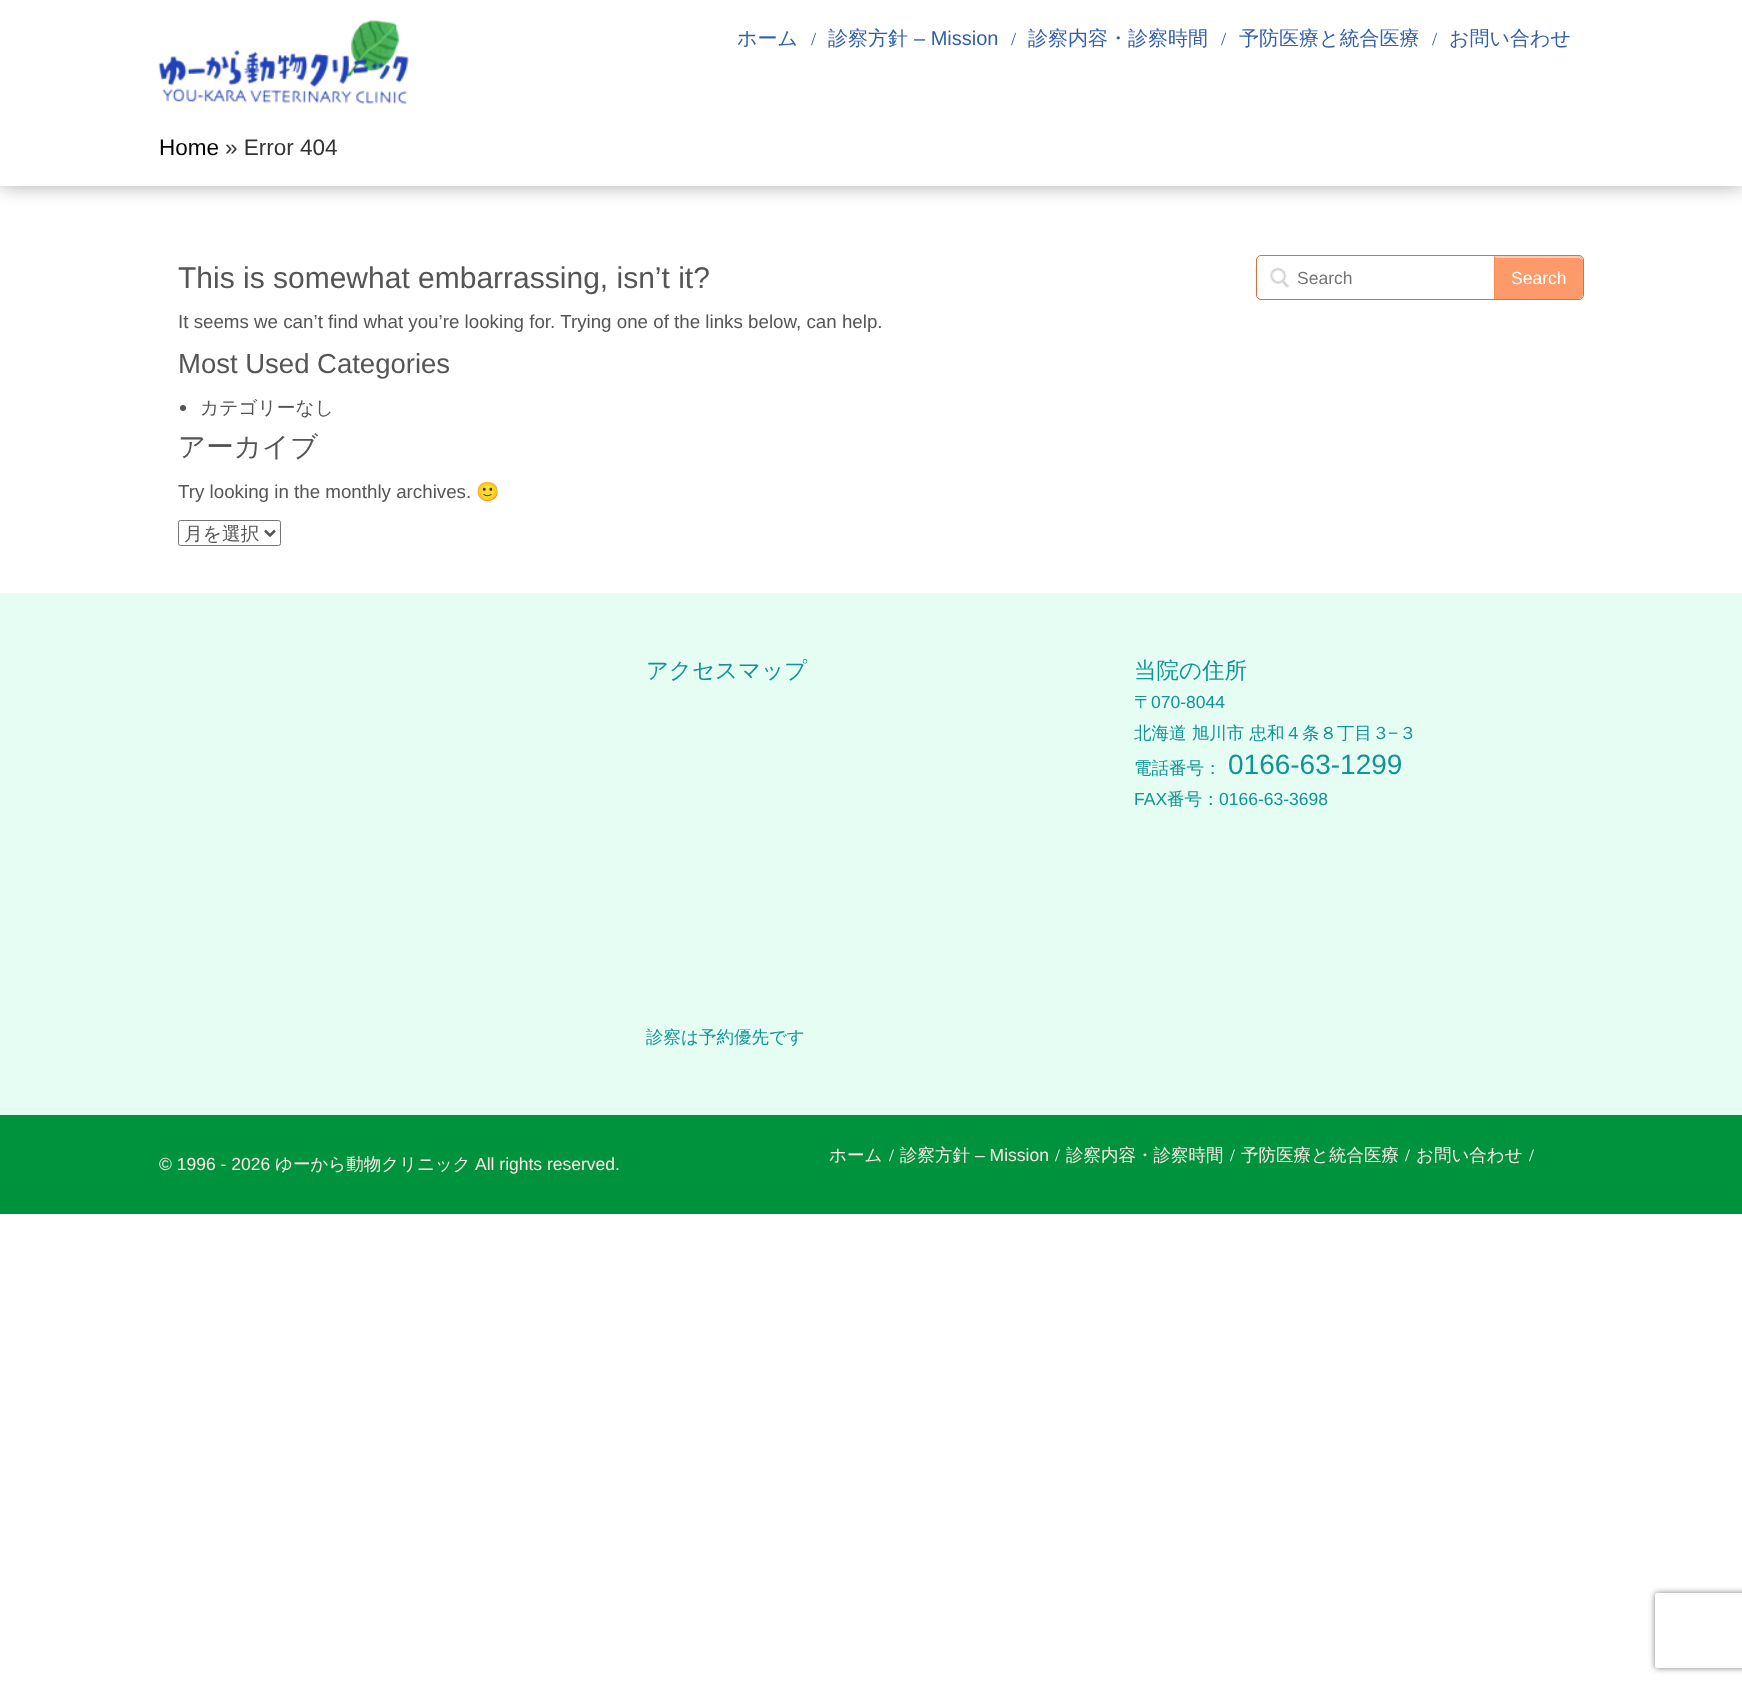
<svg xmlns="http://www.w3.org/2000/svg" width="1742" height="1684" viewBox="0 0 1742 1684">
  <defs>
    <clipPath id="clip1"><path d="M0 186h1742v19H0z"/></clipPath>
    <clipPath id="clip2"><path d="M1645 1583H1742V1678H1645ZM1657.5 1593H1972.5C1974 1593 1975 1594 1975 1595.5V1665.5C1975 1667 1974 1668 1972.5 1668H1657.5C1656 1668 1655 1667 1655 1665.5V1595.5C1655 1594 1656 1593 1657.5 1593Z" clip-rule="evenodd"/></clipPath>
  </defs>
  <rect width="100%" height="100%" fill="#fff"/>
  <g clip-path="url(#clip1)">
    <path d="M0 113h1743v73H0z" fill="#aaa" filter="blur(9.5px)"/>
  </g>
  <path d="M0 95h1742v18H0z" fill="#fff"/>
  <image x="158" y="20" width="251" height="84" href="img/1.png"/>
  <circle cx="183" cy="408" r="3" fill="#555"/>
  <rect x="178.5" y="520.5" width="102" height="25" rx="2" fill="none" stroke="#767676"/>
  <path d="M265 530.5L270 535.5L275 530.5" fill="none" stroke="#555" stroke-width="2.5"/>
  <image x="1270" y="267" width="19" height="21" href="img/2.png"/>
  <rect x="1256.5" y="255.5" width="327" height="44" rx="4.5" fill="none" stroke="#d87040"/>
  <path d="M1494 256H1578C1581 256 1583 258 1583 261V294C1583 297 1581 299 1578 299H1494Z" fill="#ff9967"/>
  <image x="1495" y="257" width="87" height="42" href="img/3.png"/>
  <path d="M1494 256H1579C1581 257 1582 259 1582 261C1582 259 1580 258 1578 258H1496Z" fill="#ffcdb4"/>
  <path d="M1495 258V299H1494V256L1496 258Z" fill="#f68e4d"/>
  <path d="M0 593h1742v522H0z" fill="#e5fdf2"/>
  <path d="M0 1115h1742v99H0z" fill="#00933e"/>
  <g clip-path="url(#clip2)">
    <rect x="1655" y="1593" width="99" height="75" rx="2.5" fill="#808080" filter="blur(3px)"/>
  </g>
  <text x="737" y="45" font-family="WenQuanYi Zen Hei" font-size="20" font-weight="500" fill="#325fa9">ホーム</text>
  <text x="811" y="45" font-family="Liberation Serif" font-size="18.75" fill="#385da5">/</text>
  <text x="828" y="45" font-family="WenQuanYi Zen Hei" font-size="20" font-weight="500" fill="#325fa9">診察方針</text>
  <text x="914" y="45" font-family="Liberation Sans" font-size="20" fill="#325fa9">– Mission</text>
  <text x="1011" y="45" font-family="Liberation Serif" font-size="18.75" fill="#385da5">/</text>
  <text x="1028" y="45" font-family="WenQuanYi Zen Hei" font-size="20" font-weight="500" fill="#325fa9">診察内容・診察時間</text>
  <text x="1221" y="45" font-family="Liberation Serif" font-size="18.75" fill="#385da5">/</text>
  <text x="1239" y="45" font-family="WenQuanYi Zen Hei" font-size="20" font-weight="500" fill="#325fa9">予防医療と統合医療</text>
  <text x="1432" y="45" font-family="Liberation Serif" font-size="18.75" fill="#385da5">/</text>
  <text x="1449" y="45" font-family="WenQuanYi Zen Hei" font-size="20" font-weight="500" fill="#325fa9">お問い合わせ</text>
  <text x="159" y="155" font-family="Liberation Sans" font-size="22.5" fill="#000">Home</text>
  <text x="225" y="155" font-family="Liberation Sans" font-size="22.5" fill="#333">» Error 404</text>
  <text x="178" y="288" font-family="Liberation Sans" font-size="30" fill="#555">This is somewhat embarrassing, isn’t it?</text>
  <text x="178" y="328" font-family="Liberation Sans" font-size="18.75" fill="#555">It seems we can’t find what you’re looking for. Trying one of the links below, can help.</text>
  <text x="178" y="373" font-family="Liberation Sans" font-size="27.5" fill="#555">Most Used Categories</text>
  <text x="200" y="414" font-family="WenQuanYi Zen Hei" font-size="18.75" font-weight="500" fill="#555">カテゴリーなし</text>
  <text x="178" y="456" font-family="WenQuanYi Zen Hei" font-size="27.5" font-weight="500" fill="#555">アーカイブ</text>
  <text x="178" y="498" font-family="Liberation Sans" font-size="18.75" fill="#555">Try looking in the monthly archives.</text>
  <text x="476" y="498" font-family="Noto Color Emoji" font-size="18.75" fill="#555">🙂</text>
  <text x="184" y="540" font-family="WenQuanYi Zen Hei" font-size="18.75" font-weight="500" fill="#555">月を選択</text>
  <text x="1297" y="284" font-family="Liberation Sans" font-size="17.5" fill="#757575">Search</text>
  <text x="1511" y="284" font-family="Liberation Sans" font-size="17.5" fill="#fff">Search</text>
  <text x="646" y="678" font-family="WenQuanYi Zen Hei" font-size="22.5" font-weight="500" fill="#119494">アクセスマップ</text>
  <text x="646" y="1043" font-family="WenQuanYi Zen Hei" font-size="17.5" font-weight="500" fill="#119494">診察は予約優先です</text>
  <text x="1134" y="678" font-family="WenQuanYi Zen Hei" font-size="22.5" font-weight="500" fill="#119494">当院の住所</text>
  <text x="1134" y="708" font-family="WenQuanYi Zen Hei" font-size="17.5" font-weight="500" fill="#119494">〒</text>
  <text x="1151" y="708" font-family="Liberation Sans" font-size="17.5" fill="#119494">070-8044</text>
  <text x="1134" y="739" font-family="WenQuanYi Zen Hei" font-size="17.5" font-weight="500" fill="#119494">北海道 旭川市 忠和４条８丁目３</text>
  <text x="1388" y="739" font-family="Liberation Sans" font-size="17.5" fill="#119494">−</text>
  <g font-family="WenQuanYi Zen Hei" font-size="17.5" font-weight="500" fill="#119494">
    <text x="1399" y="739">３</text>
    <text x="1134" y="774">電話番号：</text>
  </g>
  <text x="1228" y="774" font-family="Liberation Sans" font-size="28" fill="#119494">0166-63-1299</text>
  <text x="1134" y="805" font-family="Liberation Sans" font-size="17.5" fill="#119494">FAX</text>
  <text x="1167" y="805" font-family="WenQuanYi Zen Hei" font-size="17.5" font-weight="500" fill="#119494">番号：</text>
  <text x="1219" y="805" font-family="Liberation Sans" font-size="17.5" fill="#119494">0166-63-3698</text>
  <text x="159" y="1170" font-family="Liberation Sans" font-size="17.5" fill="#ffe8e6">© 1996 - 2026</text>
  <text x="275" y="1170" font-family="WenQuanYi Zen Hei" font-size="17.5" font-weight="500" fill="#ffe8e6">ゆーから動物クリニック</text>
  <text x="475" y="1170" font-family="Liberation Sans" font-size="17.5" fill="#ffe8e6">All rights reserved.</text>
  <text x="829" y="1161" font-family="WenQuanYi Zen Hei" font-size="17.5" font-weight="500" fill="#ffe8e6">ホーム</text>
  <text x="889" y="1161" font-family="Liberation Serif" font-size="17.5" fill="#fff">/</text>
  <text x="900" y="1161" font-family="WenQuanYi Zen Hei" font-size="17.5" font-weight="500" fill="#ffe8e6">診察方針</text>
  <text x="975" y="1161" font-family="Liberation Sans" font-size="17.5" fill="#ffe8e6">– Mission</text>
  <text x="1055" y="1161" font-family="Liberation Serif" font-size="17.5" fill="#fff">/</text>
  <text x="1066" y="1161" font-family="WenQuanYi Zen Hei" font-size="17.5" font-weight="500" fill="#ffe8e6">診察内容・診察時間</text>
  <text x="1230" y="1161" font-family="Liberation Serif" font-size="17.5" fill="#fff">/</text>
  <text x="1241" y="1161" font-family="WenQuanYi Zen Hei" font-size="17.5" font-weight="500" fill="#ffe8e6">予防医療と統合医療</text>
  <text x="1405" y="1161" font-family="Liberation Serif" font-size="17.5" fill="#fff">/</text>
  <text x="1416" y="1161" font-family="WenQuanYi Zen Hei" font-size="17.5" font-weight="500" fill="#ffe8e6">お問い合わせ</text>
  <text x="1529" y="1161" font-family="Liberation Serif" font-size="17.5" fill="#fff">/</text>
</svg>
